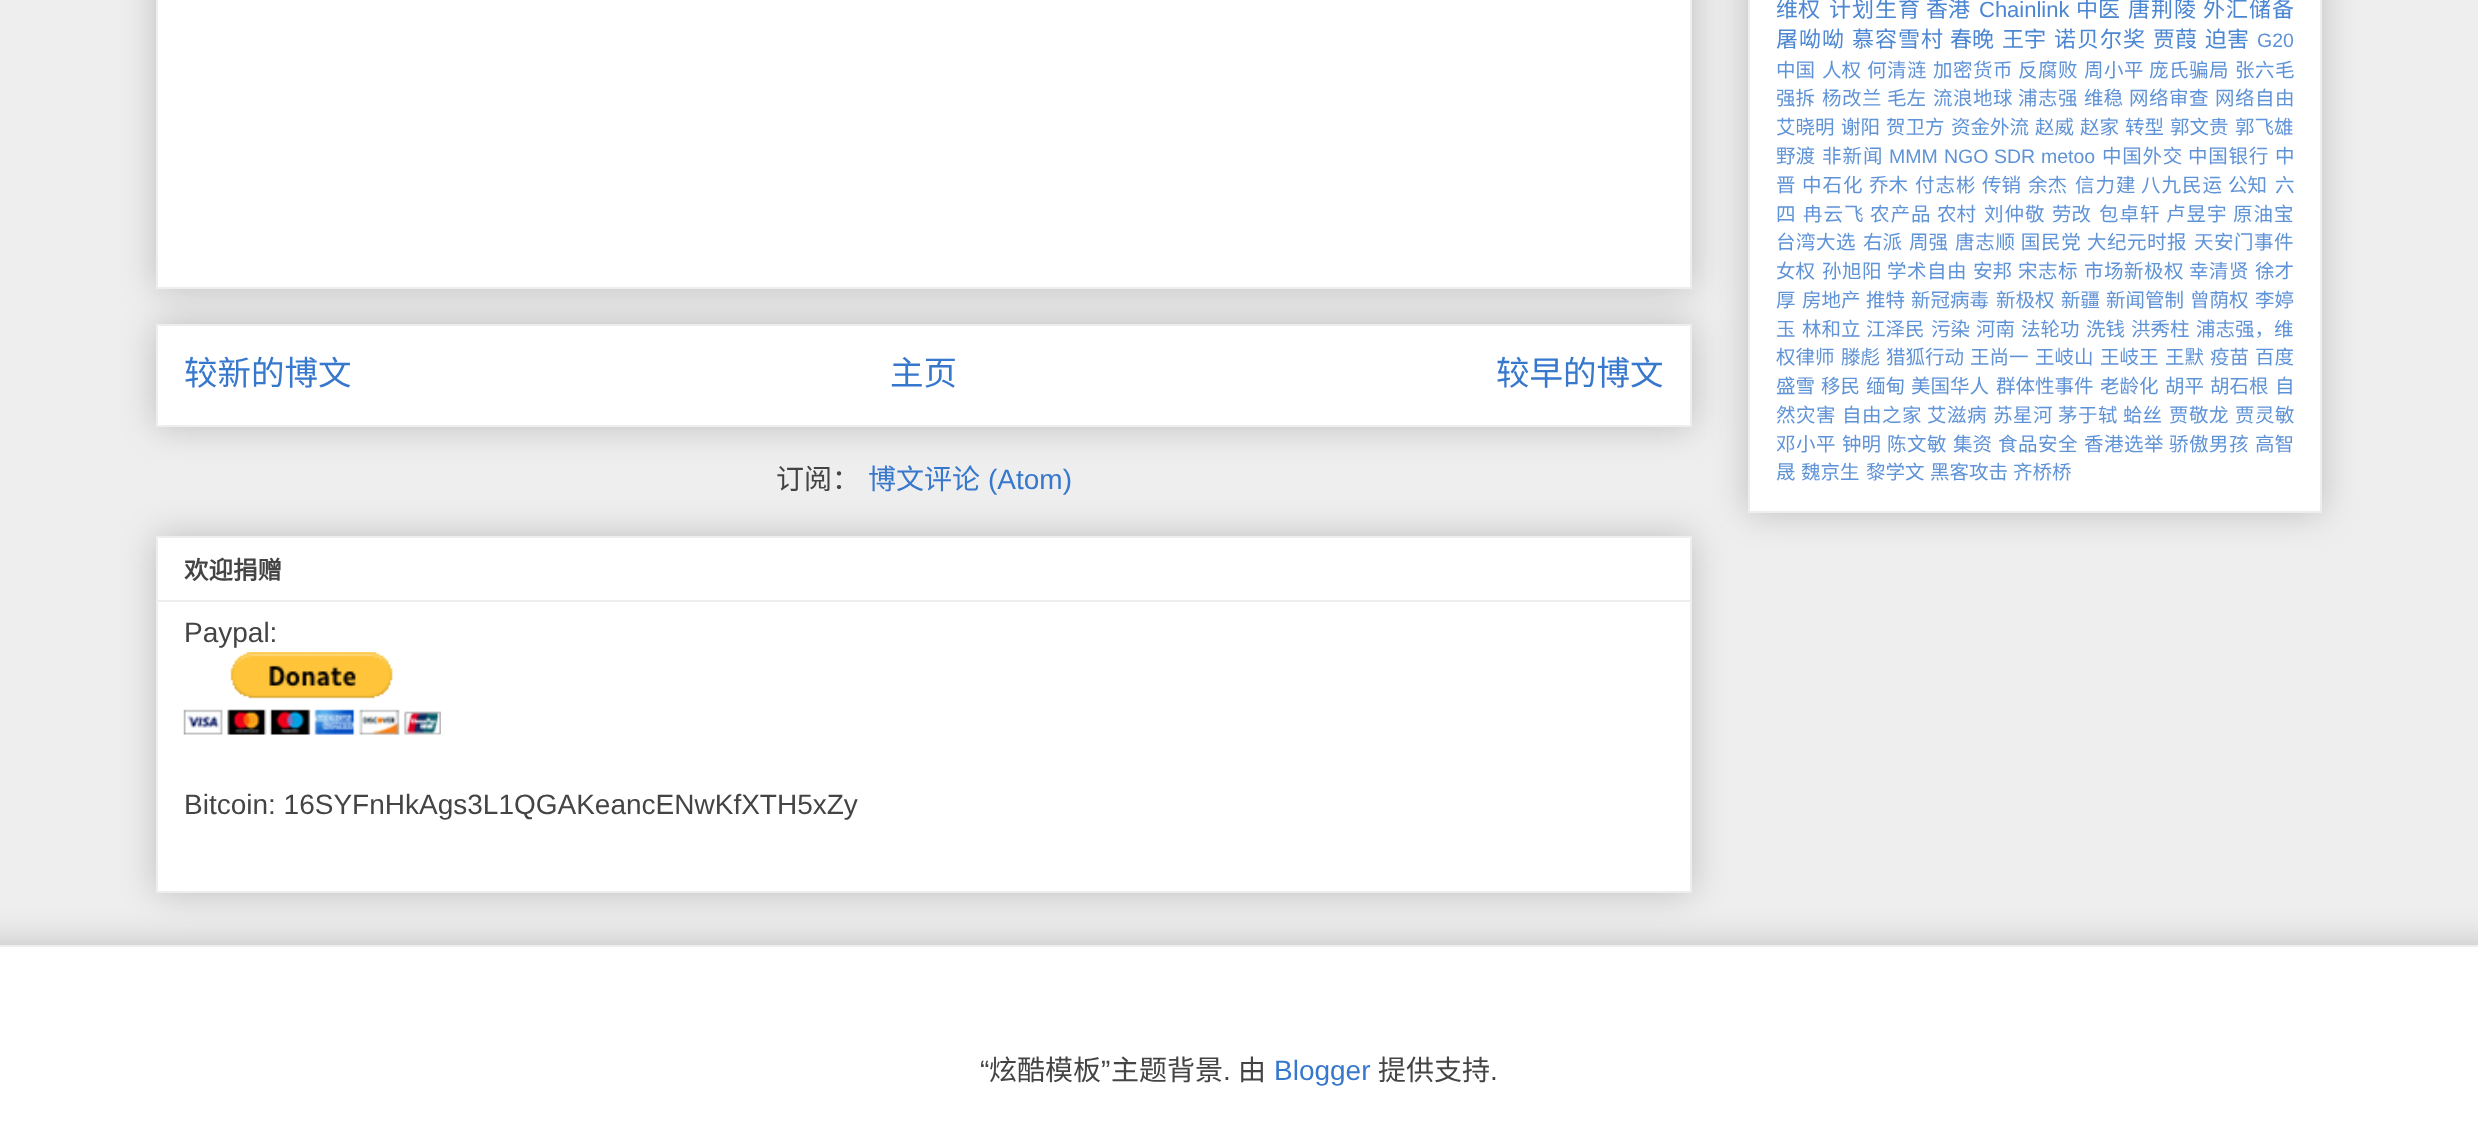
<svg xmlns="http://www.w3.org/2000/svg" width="2478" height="1142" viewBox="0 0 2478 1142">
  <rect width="100%" height="100%" fill="#eee"/>
  <path d="M1748 -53h574v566H1748z" fill="#00000033" filter="blur(17.5px)"/>
  <path d="M1749 -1h572v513H1749z" fill="#fff" stroke="#eee" stroke-width="2"/>
  <path d="M156 324h1536v103H156z" fill="#00000033" filter="blur(17.5px)"/>
  <path d="M157 325h1534v101H157z" fill="#fff" stroke="#eee" stroke-width="2"/>
  <path d="M156 -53h1536v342H156z" fill="#00000033" filter="blur(17.5px)"/>
  <path d="M157 -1h1534v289H157z" fill="#fff" stroke="#eee" stroke-width="2"/>
  <path d="M156 536h1536v357H156z" fill="#00000033" filter="blur(17.5px)"/>
  <path d="M157 537h1534v355H157z" fill="#fff" stroke="#eee" stroke-width="2"/>
  <path d="M158 600h1533v2H158z" fill="#eee"/>
  <image x="183" y="652" width="258" height="83" href="img/1.png"/>
  <path d="M-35 945h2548v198H-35z" fill="#00000033" filter="blur(17.5px)"/>
  <path d="M0 947h2478v195H0z" fill="#fff"/>
  <path d="M0 945h2478v2H0z" fill="#eee"/>
  <text x="1776" y="17" font-family="Noto Sans CJK SC" font-size="22" fill="#4b86d2">维权</text>
  <text x="1829" y="17" font-family="Noto Sans CJK SC" font-size="22" letter-spacing="1" fill="#4b86d2">计划生育</text>
  <text x="1926" y="17" font-family="Noto Sans CJK SC" font-size="22" fill="#4b86d2">香港</text>
  <text x="1979" y="17" font-family="Liberation Sans" font-size="22" fill="#4b86d2">Chainlink</text>
  <text x="2076" y="17" font-family="Noto Sans CJK SC" font-size="22" fill="#4b86d2">中医</text>
  <g font-family="Noto Sans CJK SC" font-size="22" letter-spacing="1" fill="#4b86d2">
    <text x="2128" y="17">唐荆陵</text>
    <text x="2203" y="17">外汇储备</text>
    <text x="1776" y="47">屠呦呦</text>
    <text x="1852" y="47">慕容雪村</text>
  </g>
  <g font-family="Noto Sans CJK SC" font-size="22" fill="#4b86d2">
    <text x="1950" y="47">春晚</text>
    <text x="2002" y="47">王宇</text>
  </g>
  <text x="2054" y="47" font-family="Noto Sans CJK SC" font-size="22" letter-spacing="1" fill="#4b86d2">诺贝尔奖</text>
  <g font-family="Noto Sans CJK SC" font-size="22" fill="#4b86d2">
    <text x="2153" y="47">贾葭</text>
    <text x="2205" y="47">迫害</text>
  </g>
  <text x="2257" y="47" font-family="Liberation Sans" font-size="19.5" fill="#5f93d7">G20</text>
  <g font-family="Noto Sans CJK SC" font-size="19.5" fill="#5f93d7">
    <text x="1776" y="77">中国</text>
    <text x="1822" y="77">人权</text>
  </g>
  <g font-family="Noto Sans CJK SC" font-size="19.5" letter-spacing="0.5" fill="#5f93d7">
    <text x="1867" y="77">何清涟</text>
    <text x="1933" y="77">加密货币</text>
    <text x="2018" y="77">反腐败</text>
    <text x="2084" y="77">周小平</text>
    <text x="2149" y="77">庞氏骗局</text>
    <text x="2235" y="77">张六毛</text>
  </g>
  <text x="1776" y="105" font-family="Noto Sans CJK SC" font-size="19.5" fill="#5f93d7">强拆</text>
  <text x="1822" y="105" font-family="Noto Sans CJK SC" font-size="19.5" letter-spacing="0.5" fill="#5f93d7">杨改兰</text>
  <text x="1887" y="105" font-family="Noto Sans CJK SC" font-size="19.5" fill="#5f93d7">毛左</text>
  <g font-family="Noto Sans CJK SC" font-size="19.5" letter-spacing="0.5" fill="#5f93d7">
    <text x="1933" y="105">流浪地球</text>
    <text x="2018" y="105">浦志强</text>
  </g>
  <text x="2084" y="105" font-family="Noto Sans CJK SC" font-size="19.5" fill="#5f93d7">维稳</text>
  <g font-family="Noto Sans CJK SC" font-size="19.5" letter-spacing="0.5" fill="#5f93d7">
    <text x="2129" y="105">网络审查</text>
    <text x="2215" y="105">网络自由</text>
  </g>
  <g font-family="Noto Sans CJK SC" font-size="19.5" fill="#5f93d7">
    <text x="1776" y="134">艾晓明</text>
    <text x="1841" y="134">谢阳</text>
    <text x="1886" y="134">贺卫方</text>
    <text x="1951" y="134">资金外流</text>
    <text x="2035" y="134">赵威</text>
    <text x="2080" y="134">赵家</text>
    <text x="2125" y="134">转型</text>
    <text x="2170" y="134">郭文贵</text>
    <text x="2235" y="134">郭飞雄</text>
    <text x="1776" y="163">野渡</text>
  </g>
  <text x="1822" y="163" font-family="Noto Sans CJK SC" font-size="19.5" letter-spacing="1" fill="#5f93d7">非新闻</text>
  <g font-family="Liberation Sans" font-size="19.5" fill="#5f93d7">
    <text x="1889" y="163">MMM</text>
    <text x="1944" y="163">NGO</text>
    <text x="1994" y="163">SDR</text>
    <text x="2041" y="163">metoo</text>
  </g>
  <text x="2102" y="163" font-family="Noto Sans CJK SC" font-size="19.5" letter-spacing="0.75" fill="#5f93d7">中国外交 中国银行</text>
  <g font-family="Noto Sans CJK SC" font-size="19.5" fill="#5f93d7">
    <text x="2275" y="163">中</text>
    <text x="1776" y="192">晋</text>
  </g>
  <text x="1802" y="192" font-family="Noto Sans CJK SC" font-size="19.5" letter-spacing="1" fill="#5f93d7">中石化</text>
  <text x="1869" y="192" font-family="Noto Sans CJK SC" font-size="19.5" fill="#5f93d7">乔木</text>
  <text x="1915" y="192" font-family="Noto Sans CJK SC" font-size="19.5" letter-spacing="1" fill="#5f93d7">付志彬</text>
  <g font-family="Noto Sans CJK SC" font-size="19.5" fill="#5f93d7">
    <text x="1982" y="192">传销</text>
    <text x="2028" y="192">余杰</text>
  </g>
  <g font-family="Noto Sans CJK SC" font-size="19.5" letter-spacing="1" fill="#5f93d7">
    <text x="2075" y="192">信力建</text>
    <text x="2141" y="192">八九民运</text>
  </g>
  <g font-family="Noto Sans CJK SC" font-size="19.5" fill="#5f93d7">
    <text x="2228" y="192">公知</text>
    <text x="2275" y="192">六</text>
    <text x="1776" y="221">四</text>
  </g>
  <g font-family="Noto Sans CJK SC" font-size="19.5" letter-spacing="1" fill="#5f93d7">
    <text x="1803" y="221">冉云飞</text>
    <text x="1870" y="221">农产品</text>
  </g>
  <text x="1937" y="221" font-family="Noto Sans CJK SC" font-size="19.5" fill="#5f93d7">农村</text>
  <text x="1984" y="221" font-family="Noto Sans CJK SC" font-size="19.5" letter-spacing="1" fill="#5f93d7">刘仲敬</text>
  <text x="2052" y="221" font-family="Noto Sans CJK SC" font-size="19.5" fill="#5f93d7">劳改</text>
  <g font-family="Noto Sans CJK SC" font-size="19.5" letter-spacing="1" fill="#5f93d7">
    <text x="2099" y="221">包卓轩</text>
    <text x="2166" y="221">卢昱宇</text>
    <text x="2233" y="221">原油宝</text>
  </g>
  <text x="1776" y="249" font-family="Noto Sans CJK SC" font-size="19.5" letter-spacing="0.5" fill="#5f93d7">台湾大选</text>
  <g font-family="Noto Sans CJK SC" font-size="19.5" fill="#5f93d7">
    <text x="1863" y="249">右派</text>
    <text x="1909" y="249">周强</text>
  </g>
  <text x="1955" y="249" font-family="Noto Sans CJK SC" font-size="19.5" letter-spacing="0.75" fill="#5f93d7">唐志顺 国民党</text>
  <g font-family="Noto Sans CJK SC" font-size="19.5" letter-spacing="0.5" fill="#5f93d7">
    <text x="2087" y="249">大纪元时报</text>
    <text x="2194" y="249">天安门事件</text>
  </g>
  <text x="1776" y="278" font-family="Noto Sans CJK SC" font-size="19.5" fill="#5f93d7">女权</text>
  <g font-family="Noto Sans CJK SC" font-size="19.5" letter-spacing="0.5" fill="#5f93d7">
    <text x="1822" y="278">孙旭阳</text>
    <text x="1887" y="278">学术自由</text>
  </g>
  <text x="1973" y="278" font-family="Noto Sans CJK SC" font-size="19.5" fill="#5f93d7">安邦</text>
  <g font-family="Noto Sans CJK SC" font-size="19.5" letter-spacing="0.5" fill="#5f93d7">
    <text x="2018" y="278">宋志标</text>
    <text x="2084" y="278">市场新极权</text>
    <text x="2189" y="278">幸清贤</text>
  </g>
  <g font-family="Noto Sans CJK SC" font-size="19.5" fill="#5f93d7">
    <text x="2255" y="278">徐才</text>
    <text x="1776" y="307">厚</text>
    <text x="1802" y="307">房地产</text>
    <text x="1866" y="307">推特</text>
    <text x="1911" y="307">新冠病毒</text>
    <text x="1996" y="307">新极权</text>
    <text x="2061" y="307">新疆</text>
    <text x="2106" y="307">新闻管制</text>
    <text x="2190" y="307">曾荫权</text>
    <text x="2255" y="307">李婷</text>
    <text x="1776" y="336">玉</text>
    <text x="1802" y="336">林和立</text>
    <text x="1866" y="336">江泽民</text>
    <text x="1931" y="336">污染</text>
    <text x="1976" y="336">河南</text>
    <text x="2021" y="336">法轮功</text>
    <text x="2086" y="336">洗钱</text>
    <text x="2131" y="336">洪秀柱</text>
    <text x="2196" y="336">浦志强，维</text>
    <text x="1776" y="364">权律师</text>
    <text x="1841" y="364">滕彪</text>
    <text x="1886" y="364">猎狐行动</text>
    <text x="1970" y="364">王尚一</text>
    <text x="2035" y="364">王岐山</text>
    <text x="2100" y="364">王岐王</text>
    <text x="2165" y="364">王默</text>
    <text x="2210" y="364">疫苗</text>
    <text x="2255" y="364">百度</text>
    <text x="1776" y="393">盛雪</text>
    <text x="1821" y="393">移民</text>
    <text x="1866" y="393">缅甸</text>
    <text x="1911" y="393">美国华人</text>
    <text x="1996" y="393">群体性事件</text>
    <text x="2100" y="393">老龄化</text>
    <text x="2165" y="393">胡平</text>
    <text x="2210" y="393">胡石根</text>
    <text x="2275" y="393">自</text>
  </g>
  <g font-family="Noto Sans CJK SC" font-size="19.5" letter-spacing="0.5" fill="#5f93d7">
    <text x="1776" y="422">然灾害</text>
    <text x="1842" y="422">自由之家</text>
    <text x="1927" y="422">艾滋病</text>
    <text x="1993" y="422">苏星河</text>
    <text x="2058" y="422">茅于轼</text>
  </g>
  <text x="2123" y="422" font-family="Noto Sans CJK SC" font-size="19.5" fill="#5f93d7">蛤丝</text>
  <g font-family="Noto Sans CJK SC" font-size="19.5" letter-spacing="0.5" fill="#5f93d7">
    <text x="2169" y="422">贾敬龙</text>
    <text x="2235" y="422">贾灵敏</text>
    <text x="1776" y="451">邓小平</text>
  </g>
  <text x="1842" y="451" font-family="Noto Sans CJK SC" font-size="19.5" fill="#5f93d7">钟明</text>
  <text x="1887" y="451" font-family="Noto Sans CJK SC" font-size="19.5" letter-spacing="0.5" fill="#5f93d7">陈文敏</text>
  <text x="1953" y="451" font-family="Noto Sans CJK SC" font-size="19.5" fill="#5f93d7">集资</text>
  <g font-family="Noto Sans CJK SC" font-size="19.5" letter-spacing="0.5" fill="#5f93d7">
    <text x="1998" y="451">食品安全</text>
    <text x="2084" y="451">香港选举</text>
    <text x="2169" y="451">骄傲男孩</text>
  </g>
  <g font-family="Noto Sans CJK SC" font-size="19.5" fill="#5f93d7">
    <text x="2255" y="451">高智</text>
    <text x="1776" y="479">晟</text>
    <text x="1801" y="479">魏京生</text>
    <text x="1866" y="479">黎学文</text>
    <text x="1930" y="479">黑客攻击</text>
    <text x="2013" y="479">齐桥桥</text>
  </g>
  <g font-family="Noto Sans CJK SC" font-size="33.5" fill="#3778cd">
    <text x="184" y="385">较新的博文</text>
    <text x="890" y="385">主页</text>
    <text x="1496" y="385">较早的博文</text>
  </g>
  <text x="776" y="489" font-family="Noto Sans CJK SC" font-size="28" fill="#444">订阅：</text>
  <text x="868" y="489" font-family="Noto Sans CJK SC" font-size="28" fill="#3778cd">博文评论</text>
  <text x="988" y="489" font-family="Liberation Sans" font-size="28" fill="#3778cd">(Atom)</text>
  <text x="184" y="579" font-family="Noto Sans CJK SC" font-size="24.5" font-weight="bold" fill="#444">欢迎捐赠</text>
  <g font-family="Liberation Sans" font-size="28" fill="#444">
    <text x="184" y="642">Paypal:</text>
    <text x="184" y="814">Bitcoin: 16SYFnHkAgs3L1QGAKeancENwKfXTH5xZy</text>
    <text x="980" y="1080">“</text>
  </g>
  <text x="989" y="1080" font-family="Noto Sans CJK SC" font-size="28" fill="#444">炫酷模板</text>
  <text x="1101" y="1080" font-family="Liberation Sans" font-size="28" fill="#444">”</text>
  <g font-family="Noto Sans CJK SC" font-size="28" fill="#444">
    <text x="1111" y="1080">主题背景</text>
    <text x="1238" y="1080">由</text>
  </g>
  <text x="1274" y="1080" font-family="Liberation Sans" font-size="28" fill="#3778cd">Blogger</text>
  <text x="1378" y="1080" font-family="Noto Sans CJK SC" font-size="28" fill="#444">提供支持</text>
  <g font-family="Liberation Sans" font-size="28" fill="#444">
    <text x="1223" y="1080">.</text>
    <text x="1490" y="1080">.</text>
  </g>
</svg>
